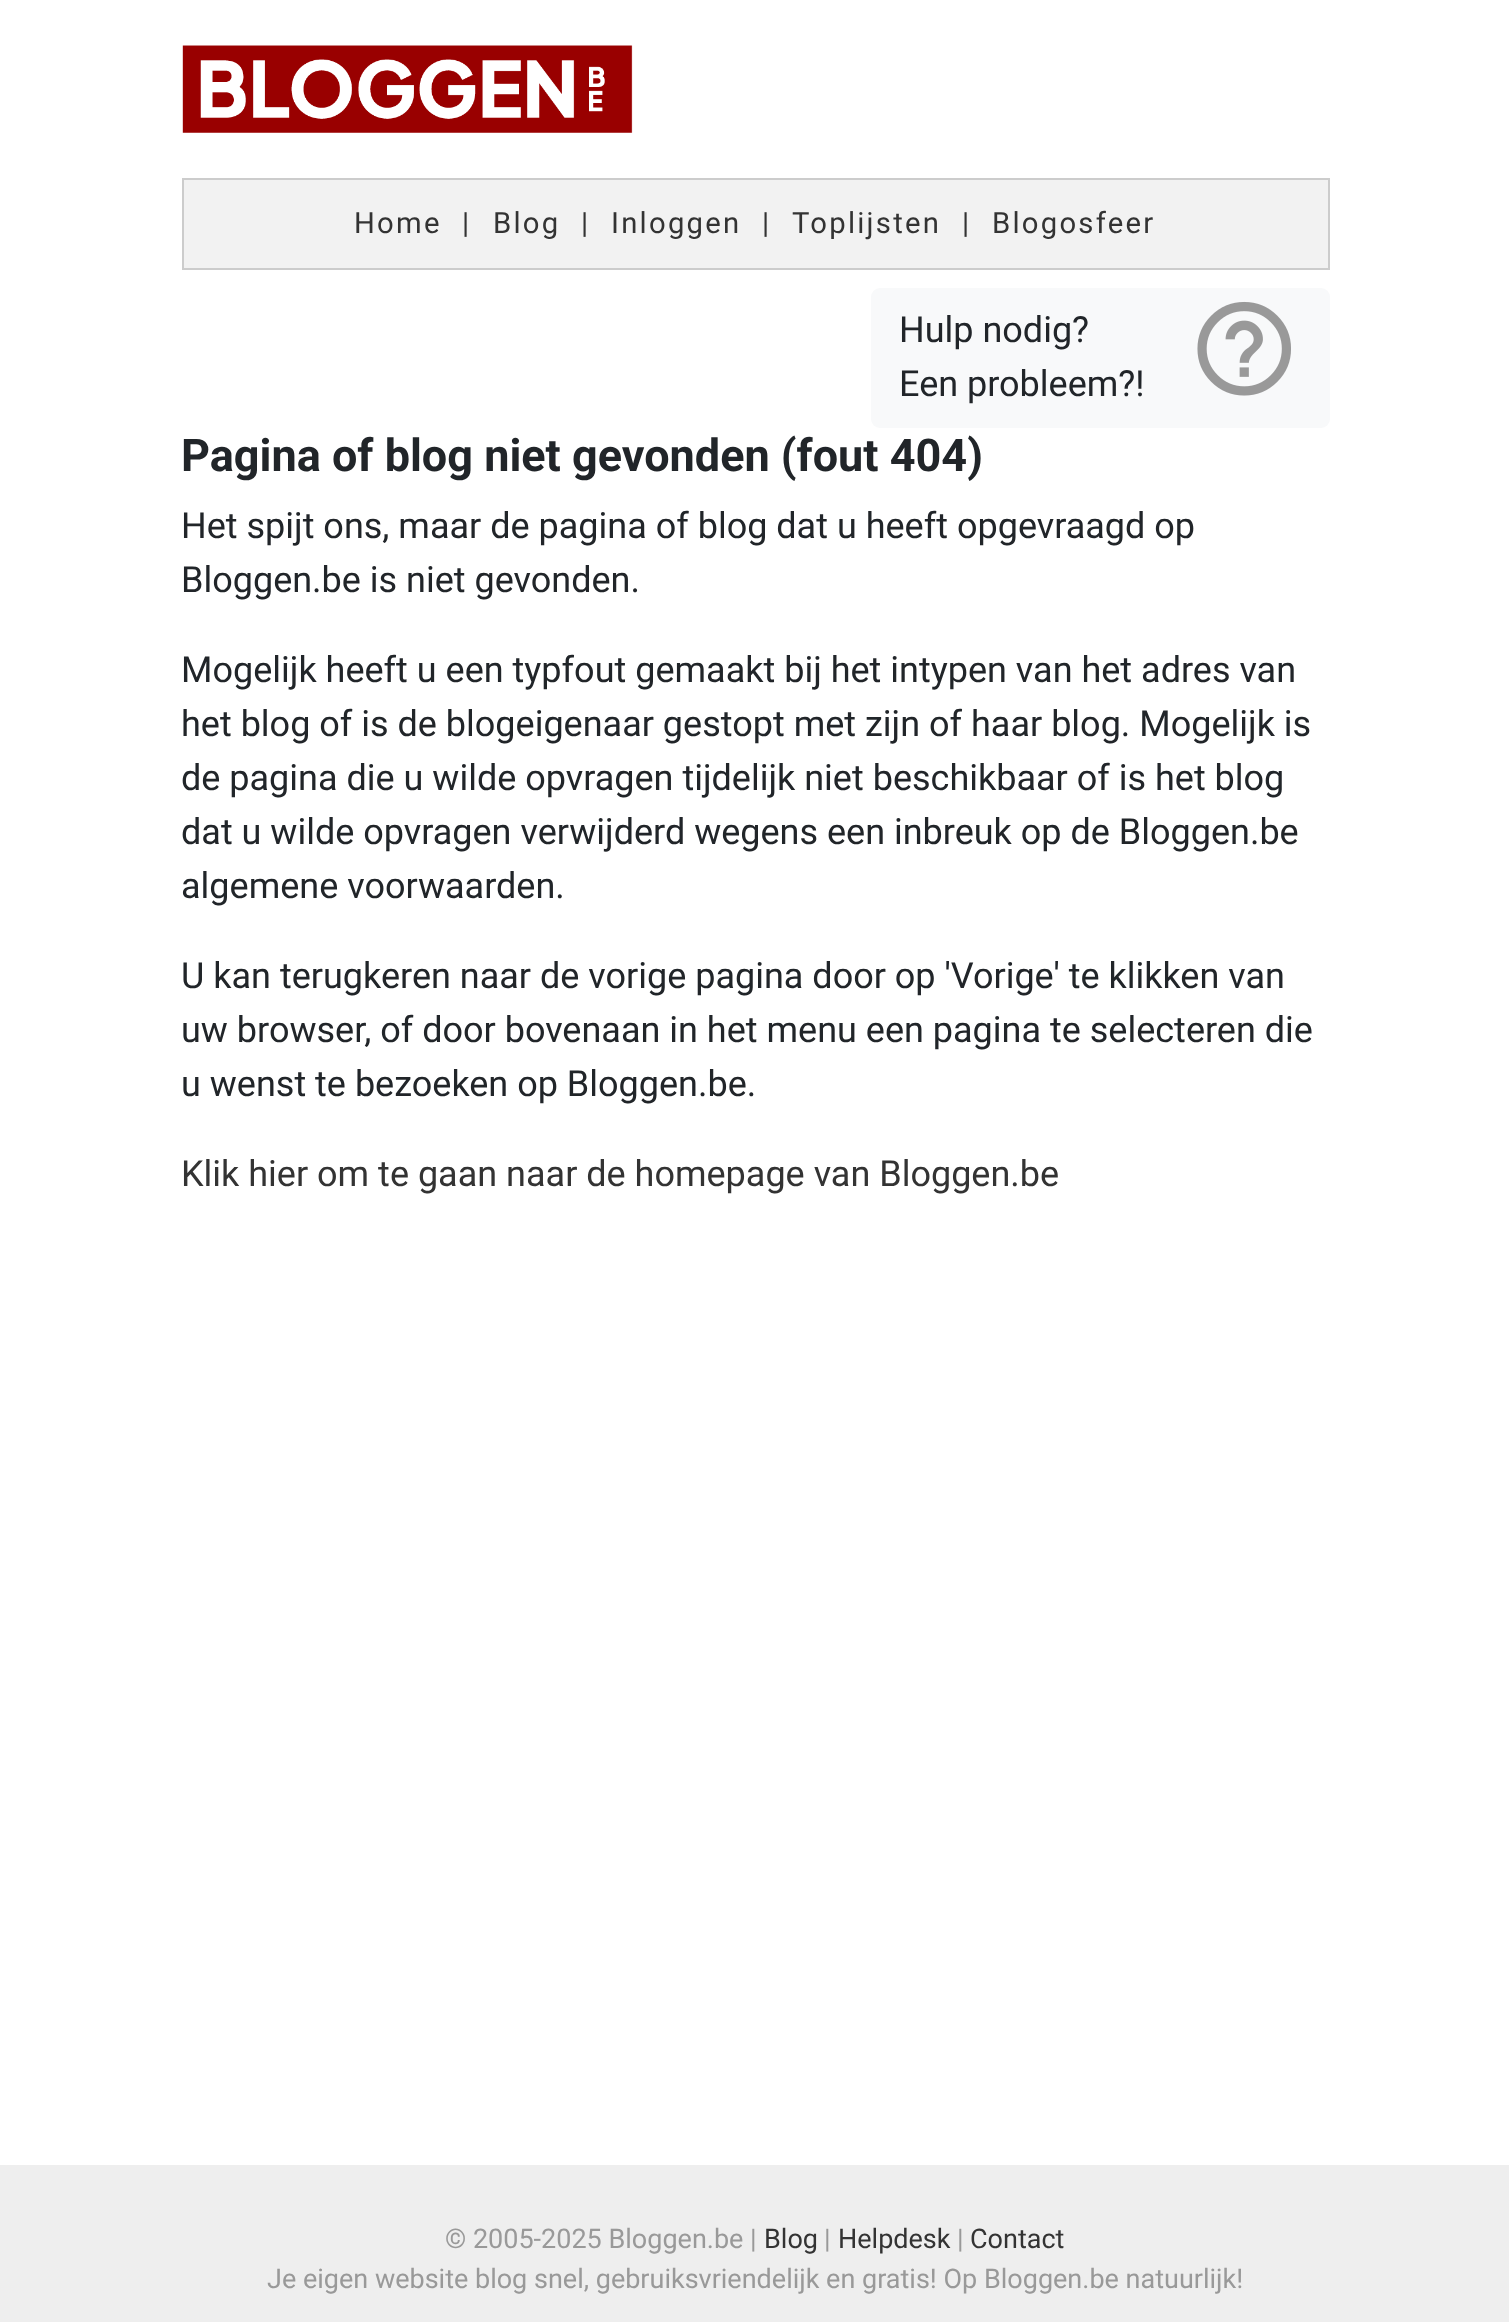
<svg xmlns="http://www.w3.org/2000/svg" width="1509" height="2322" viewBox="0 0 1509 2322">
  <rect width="100%" height="100%" fill="#fff"/>
  <image x="182" y="45" width="451" height="88" href="img/1.png"/>
  <path d="M183 179h1146v90H183z" fill="#f2f2f2" stroke="#ccc" stroke-width="2"/>
  <rect x="871" y="288" width="459" height="140" rx="9" fill="#f8f9fa"/>
  <image x="1197" y="301" width="94" height="95" href="img/2.png"/>
  <path d="M0 2165h1509v157H0z" fill="#eee"/>
  <g font-family="Roboto" font-size="29.25" letter-spacing="2.25" fill="#333">
    <text x="354" y="233">Home</text>
    <text x="462" y="233">|</text>
    <text x="493" y="233">Blog</text>
    <text x="581" y="233">|</text>
    <text x="611" y="233">Inloggen</text>
    <text x="762" y="233">|</text>
    <text x="792" y="233">Toplijsten</text>
    <text x="962" y="233">|</text>
    <text x="992" y="233">Blogosfeer</text>
  </g>
  <g font-family="Roboto" font-size="36" fill="#212529">
    <text x="899" y="342">Hulp nodig?</text>
    <text x="899" y="396">Een probleem?!</text>
  </g>
  <text x="181" y="471" font-family="Roboto" font-size="45" font-weight="bold" fill="#212529">Pagina of blog niet gevonden (fout 404)</text>
  <g font-family="Roboto" font-size="36" fill="#212529">
    <text x="181" y="538">Het spijt ons, maar de pagina of blog dat u heeft opgevraagd op</text>
    <text x="181" y="592">Bloggen.be is niet gevonden.</text>
    <text x="181" y="682">Mogelijk heeft u een typfout gemaakt bij het intypen van het adres van</text>
    <text x="181" y="736">het blog of is de blogeigenaar gestopt met zijn of haar blog. Mogelijk is</text>
    <text x="181" y="790">de pagina die u wilde opvragen tijdelijk niet beschikbaar of is het blog</text>
    <text x="181" y="844">dat u wilde opvragen verwijderd wegens een inbreuk op de Bloggen.be</text>
    <text x="181" y="898">algemene voorwaarden.</text>
    <text x="181" y="988">U kan terugkeren naar de vorige pagina door op 'Vorige' te klikken van</text>
    <text x="181" y="1042">uw browser, of door bovenaan in het menu een pagina te selecteren die</text>
    <text x="181" y="1096">u wenst te bezoeken op Bloggen.be.</text>
  </g>
  <text x="181" y="1186" font-family="Roboto" font-size="36" fill="#333">Klik hier om te gaan naar de homepage van Bloggen.be</text>
  <text x="445" y="2248" font-family="Roboto" font-size="27" fill="#999">© 2005-2025 Bloggen.be |</text>
  <text x="764" y="2248" font-family="Roboto" font-size="27" fill="#333">Blog</text>
  <text x="824" y="2248" font-family="Roboto" font-size="27" fill="#999">|</text>
  <text x="838" y="2248" font-family="Roboto" font-size="27" fill="#333">Helpdesk</text>
  <text x="957" y="2248" font-family="Roboto" font-size="27" fill="#999">|</text>
  <text x="970" y="2248" font-family="Roboto" font-size="27" fill="#333">Contact</text>
  <text x="267" y="2288" font-family="Roboto" font-size="27" fill="#999">Je eigen website blog snel, gebruiksvriendelijk en gratis! Op Bloggen.be natuurlijk!</text>
</svg>
